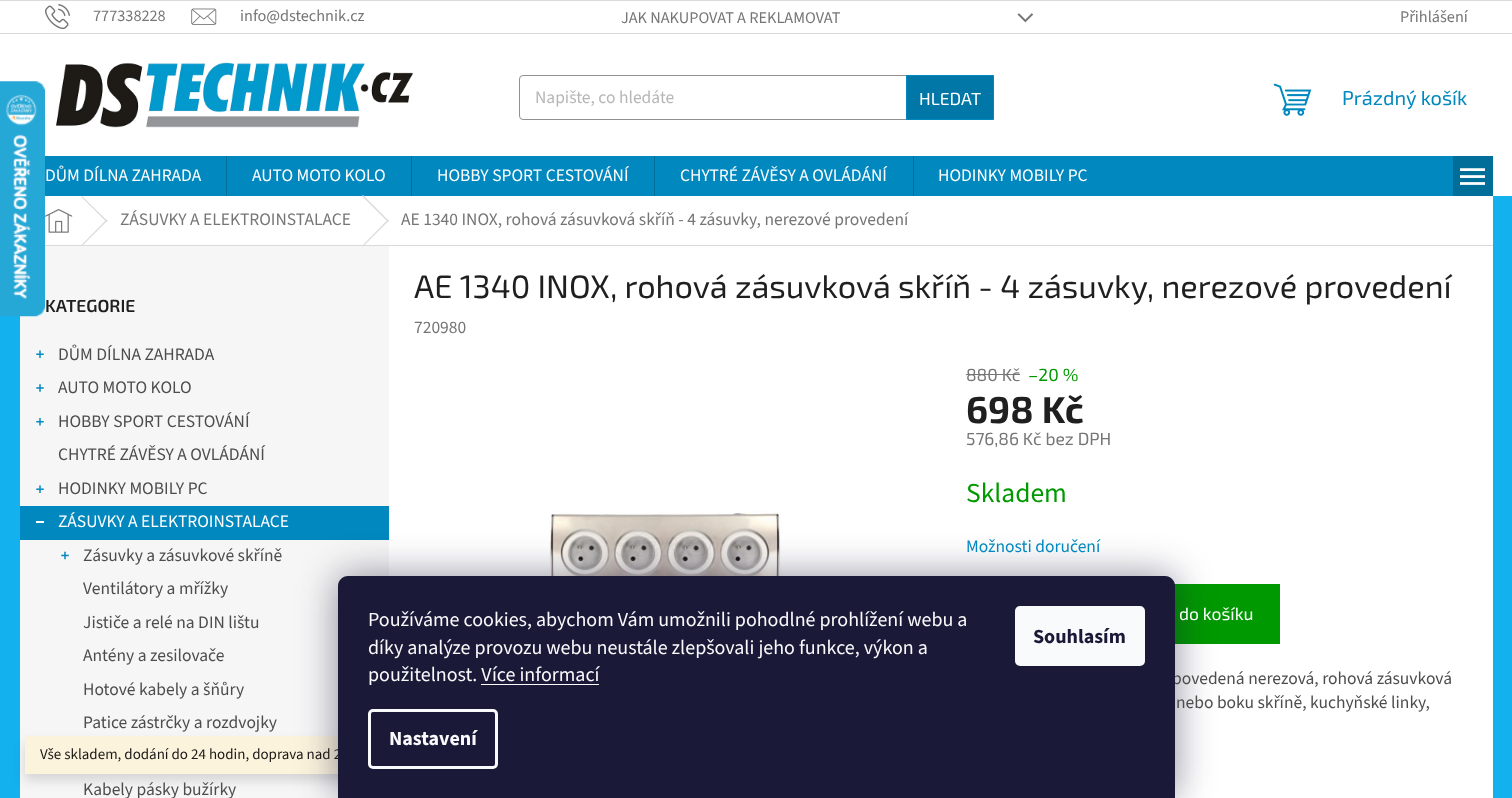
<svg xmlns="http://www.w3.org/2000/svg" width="1512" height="798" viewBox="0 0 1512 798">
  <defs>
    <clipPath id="clip1"><path d="M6 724H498V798H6ZM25 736H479V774H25Z" clip-rule="evenodd"/></clipPath>
  </defs>
  <rect width="100%" height="100%" fill="#14b1ef"/>
  <path d="M0 34h1512v162H0z" fill="#fff"/>
  <path d="M20 246h369v552H20z" fill="#f6f6f6"/>
  <image x="0" y="81" width="45" height="236" href="img/1.png"/>
  <path d="M0 1h1512v32H0z" fill="#fff"/>
  <path d="M0 0h1512v1H0z" fill="#dadada"/>
  <path d="M0 33h1512v1H0z" fill="#dadada"/>
  <image x="45" y="4" width="25" height="26" href="img/2.png"/>
  <image x="191" y="8" width="26" height="17" href="img/3.png"/>
  <image x="1017" y="13" width="17" height="10" href="img/4.png"/>
  <image x="55" y="62" width="359" height="66" href="img/5.png"/>
  <rect x="519.5" y="75.5" width="474" height="44" rx="3.5" fill="none" stroke="#919191"/>
  <path d="M906.5 75.5h87v44H906.5z" fill="#0077a6" stroke="#0088bf"/>
  <image x="1273" y="83" width="39" height="33" href="img/6.png"/>
  <path d="M45 156h1408v40H45z" fill="#0088bf"/>
  <path d="M226 156h1v40H226z" fill="#006e99"/>
  <path d="M411 156h1v40H411z" fill="#006e99"/>
  <path d="M654 156h1v40H654z" fill="#006e99"/>
  <path d="M913 156h1v40H913z" fill="#006e99"/>
  <path d="M1453 156h40v40H1453z" fill="#006e99"/>
  <image x="1460" y="168" width="25" height="17" href="img/7.png"/>
  <path d="M45 196h1448v49H45z" fill="#fff"/>
  <path d="M45 245h1448v1H45z" fill="#dadada"/>
  <image x="45" y="209" width="28" height="24" href="img/8.png"/>
  <path d="M81.5 197L82 196L107.5 221L106.5 222Z" fill="#dadada"/>
  <path d="M106.5 219.5L107.5 220.5L82 246L81.5 245Z" fill="#dadada"/>
  <path d="M362 196L363 195L389 221L388 222Z" fill="#dadada"/>
  <path d="M388 219.5L389 220.5L363 246.5L362 246Z" fill="#dadada"/>
  <path d="M389 246h1104v552H389z" fill="#fff"/>
  <image x="36" y="350" width="8" height="8" href="img/9.png"/>
  <image x="36" y="384" width="8" height="8" href="img/10.png"/>
  <image x="36" y="418" width="8" height="8" href="img/11.png"/>
  <image x="36" y="485" width="8" height="8" href="img/9.png"/>
  <path d="M20 506h369v34H20z" fill="#0088bf"/>
  <path d="M36 521h8v2H36z" fill="#fff"/>
  <image x="61" y="551" width="8" height="9" href="img/12.png"/>
  <image x="549" y="511" width="233" height="65" href="img/13.png"/>
  <path d="M966 374h54v1H966z" fill="#767676"/>
  <path d="M1174 584h106v60H1174z" fill="#009901"/>
  <g clip-path="url(#clip1)">
    <path d="M25 743h454v37H25z" fill="#00000024" filter="blur(6px)"/>
  </g>
  <path d="M25 736h313v38H25z" fill="#fdf3dae6"/>
  <rect x="338" y="576" width="837" height="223" rx="10" fill="#1b193980" filter="blur(19px)"/>
  <g font-family="'Source Sans 3'" font-size="16.25" fill="#767676">
    <text x="93" y="21">777338228</text>
    <text x="240" y="21">info@dstechnik.cz</text>
    <text x="621" y="23">JAK NAKUPOVAT A REKLAMOVAT</text>
    <text x="1400" y="22">Přihlášení</text>
  </g>
  <text x="535" y="103" font-family="'Source Sans 3'" font-size="17.5" fill="#b6b6b6">Napište, co hledáte</text>
  <text x="919" y="105" font-family="'Exo 2'" font-size="17.5" fill="#fff">HLEDAT</text>
  <text x="1342" y="105" font-family="'Exo 2'" font-size="20" fill="#0088bf">Prázdný košík</text>
  <g font-family="'Source Sans 3'" font-size="17.5" fill="#fff">
    <text x="45" y="181">DŮM DÍLNA ZAHRADA</text>
    <text x="252" y="181">AUTO MOTO KOLO</text>
    <text x="437" y="181">HOBBY SPORT CESTOVÁNÍ</text>
    <text x="680" y="181">CHYTRÉ ZÁVĚSY A OVLÁDÁNÍ</text>
    <text x="938" y="181">HODINKY MOBILY PC</text>
  </g>
  <g font-family="'Source Sans 3'" font-size="17.5" fill="#767676">
    <text x="120" y="225">ZÁSUVKY A ELEKTROINSTALACE</text>
    <text x="401" y="225">AE 1340 INOX, rohová zásuvková skříň - 4 zásuvky, nerezové provedení</text>
  </g>
  <text x="45" y="312" font-family="'Exo 2'" font-size="17.5" font-weight="600" fill="#1f1f1f">KATEGORIE</text>
  <g font-family="'Source Sans 3'" font-size="17.5" fill="#4d4d4d">
    <text x="58" y="360">DŮM DÍLNA ZAHRADA</text>
    <text x="58" y="393">AUTO MOTO KOLO</text>
    <text x="58" y="427">HOBBY SPORT CESTOVÁNÍ</text>
    <text x="58" y="460">CHYTRÉ ZÁVĚSY A OVLÁDÁNÍ</text>
    <text x="58" y="494">HODINKY MOBILY PC</text>
  </g>
  <text x="58" y="527" font-family="'Source Sans 3'" font-size="17.5" fill="#fff">ZÁSUVKY A ELEKTROINSTALACE</text>
  <g font-family="'Source Sans 3'" font-size="17.5" fill="#4d4d4d">
    <text x="83" y="561">Zásuvky a zásuvkové skříně</text>
    <text x="83" y="594">Ventilátory a mřížky</text>
    <text x="83" y="628">Jističe a relé na DIN lištu</text>
    <text x="83" y="661">Antény a zesilovače</text>
    <text x="83" y="695">Hotové kabely a šňůry</text>
    <text x="83" y="728">Patice zástrčky a rozdvojky</text>
    <text x="83" y="795">Kabely pásky bužírky</text>
  </g>
  <text x="414" y="298" font-family="'Exo 2'" font-size="32.5" fill="#1f1f1f">AE 1340 INOX, rohová zásuvková skříň - 4 zásuvky, nerezové provedení</text>
  <text x="414" y="333" font-family="'Source Sans 3'" font-size="17.5" fill="#767676">720980</text>
  <text x="966" y="381" font-family="'Exo 2'" font-size="17.5" fill="#767676">880 Kč</text>
  <text x="1028" y="381" font-family="'Exo 2'" font-size="17.5" fill="#009901">–20 %</text>
  <text x="966" y="423" font-family="'Exo 2'" font-size="37.5" font-weight="bold" fill="#1f1f1f">698 Kč</text>
  <text x="966" y="445" font-family="'Exo 2'" font-size="17.5" fill="#767676">576,86 Kč bez DPH</text>
  <text x="966" y="502" font-family="'Source Sans 3'" font-size="27.5" fill="#009901">Skladem</text>
  <text x="966" y="552" font-family="'Source Sans 3'" font-size="17.5" fill="#0088bf">Možnosti doručení</text>
  <text x="1179" y="620" font-family="'Exo 2'" font-size="17.5" fill="#fff">do košíku</text>
  <g font-family="'Source Sans 3'" font-size="17.5" fill="#4d4d4d">
    <text x="1172" y="684">povedená nerezová, rohová zásuvková</text>
    <text x="1176" y="708">nebo boku skříně, kuchyňské linky,</text>
  </g>
  <text x="40" y="759" font-family="'Source Sans 3'" font-size="15" fill="#191816">Vše skladem, dodání do 24 hodin, doprava nad 2</text>
  <path d="M348 576H1165C1170.5 576 1175 580.5 1175 586V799H338V586C338 580.5 342.5 576 348 576Z" fill="#1a1937"/>
  <g font-family="'Source Sans 3'" font-size="20" fill="#f8fafb">
    <text x="368" y="626">Používáme cookies, abychom Vám umožnili pohodlné prohlížení webu a</text>
    <text x="368" y="654">díky analýze provozu webu neustále zlepšovali jeho funkce, výkon a</text>
    <text x="368" y="681">použitelnost. Více informací</text>
  </g>
  <path d="M481 684h118v1H481z" fill="#f8fafb"/>
  <rect x="369.5" y="710.5" width="127" height="57" rx="3.5" fill="none" stroke="#f8fafb" stroke-width="3"/>
  <text x="389" y="745" font-family="'Source Sans 3'" font-size="20" font-weight="bold" fill="#f8fafb">Nastavení</text>
  <rect x="1015" y="606" width="130" height="60" rx="5" fill="#f8fafb"/>
  <text x="1033" y="643" font-family="'Source Sans 3'" font-size="20" font-weight="bold" fill="#1a1937">Souhlasím</text>
</svg>
